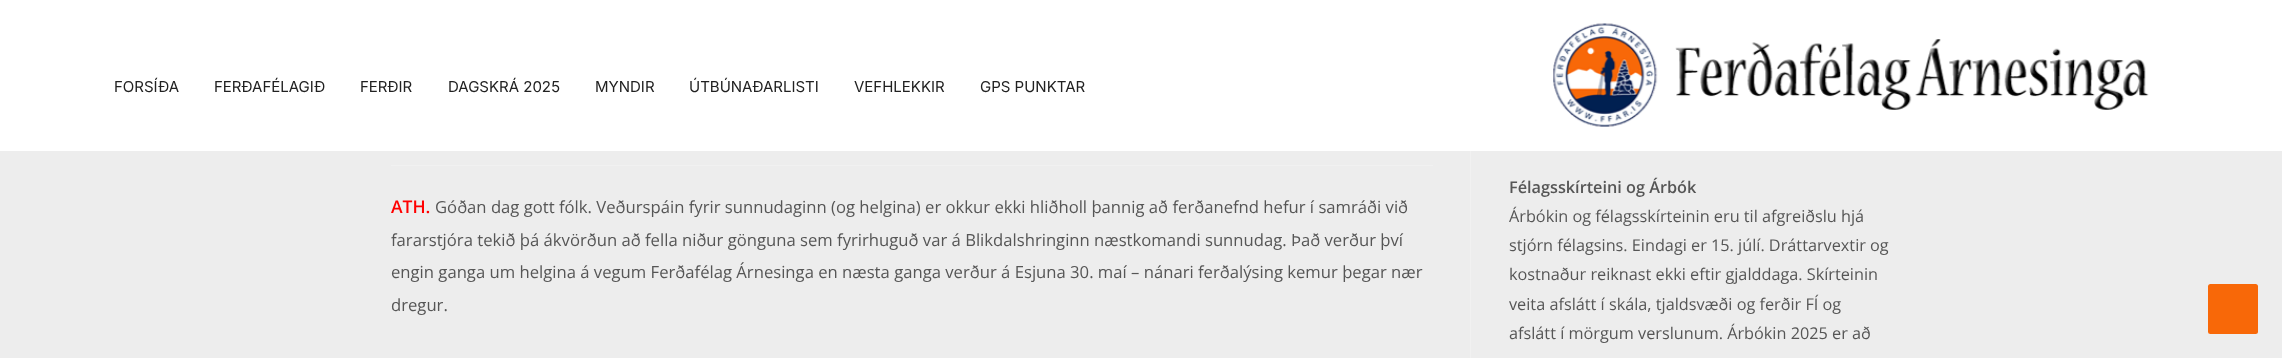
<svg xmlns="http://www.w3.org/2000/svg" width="2282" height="358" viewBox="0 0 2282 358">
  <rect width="100%" height="100%" fill="#ededed"/>
  <path d="M0 0h2282v151H0z" fill="#fff"/>
  <image x="1553" y="23" width="596" height="104" href="img/1.png"/>
  <path d="M1470 151h1v207H1470z" fill="#f1f1f1"/>
  <path d="M391 165h1042v1H391z" fill="#f1f1f1"/>
  <rect x="2208" y="284" width="50" height="50" rx="2.5" fill="#f86808"/>
  <g font-family="Inter" font-size="15" fill="#212121">
    <text x="114" y="92">FORSÍÐA</text>
    <text x="214" y="92">FERÐAFÉLAGIÐ</text>
    <text x="360" y="92">FERÐIR</text>
    <text x="448" y="92">DAGSKRÁ 2025</text>
    <text x="595" y="92">MYNDIR</text>
    <text x="689" y="92">ÚTBÚNAÐARLISTI</text>
    <text x="854" y="92">VEFHLEKKIR</text>
    <text x="980" y="92">GPS PUNKTAR</text>
  </g>
  <text x="391" y="213" font-family="Open Sans" font-size="17.5" font-weight="600" fill="#f00">ATH.</text>
  <g font-family="Open Sans" font-size="16.67" fill="#565656">
    <text x="435" y="213">Góðan dag gott fólk. Veðurspáin fyrir sunnudaginn (og helgina) er okkur ekki hliðholl þannig að ferðanefnd hefur í samráði við</text>
    <text x="391" y="246">fararstjóra tekið þá ákvörðun að fella niður gönguna sem fyrirhuguð var á Blikdalshringinn næstkomandi sunnudag. Það verður því</text>
    <text x="391" y="278">engin ganga um helgina á vegum Ferðafélag Árnesinga en næsta ganga verður á Esjuna 30. maí – nánari ferðalýsing kemur þegar nær</text>
    <text x="391" y="311">dregur.</text>
  </g>
  <text x="1509" y="193" font-family="Open Sans" font-size="16.25" font-weight="600" fill="#565656">Félagsskírteini og Árbók</text>
  <g font-family="Open Sans" font-size="16.25" fill="#565656">
    <text x="1509" y="222">Árbókin og félagsskírteinin eru til afgreiðslu hjá</text>
    <text x="1509" y="251">stjórn félagsins. Eindagi er 15. júlí. Dráttarvextir og</text>
    <text x="1509" y="280">kostnaður reiknast ekki eftir gjalddaga. Skírteinin</text>
    <text x="1509" y="310">veita afslátt í skála, tjaldsvæði og ferðir FÍ og</text>
    <text x="1509" y="339">afslátt í mörgum verslunum. Árbókin 2025 er að</text>
  </g>
</svg>
